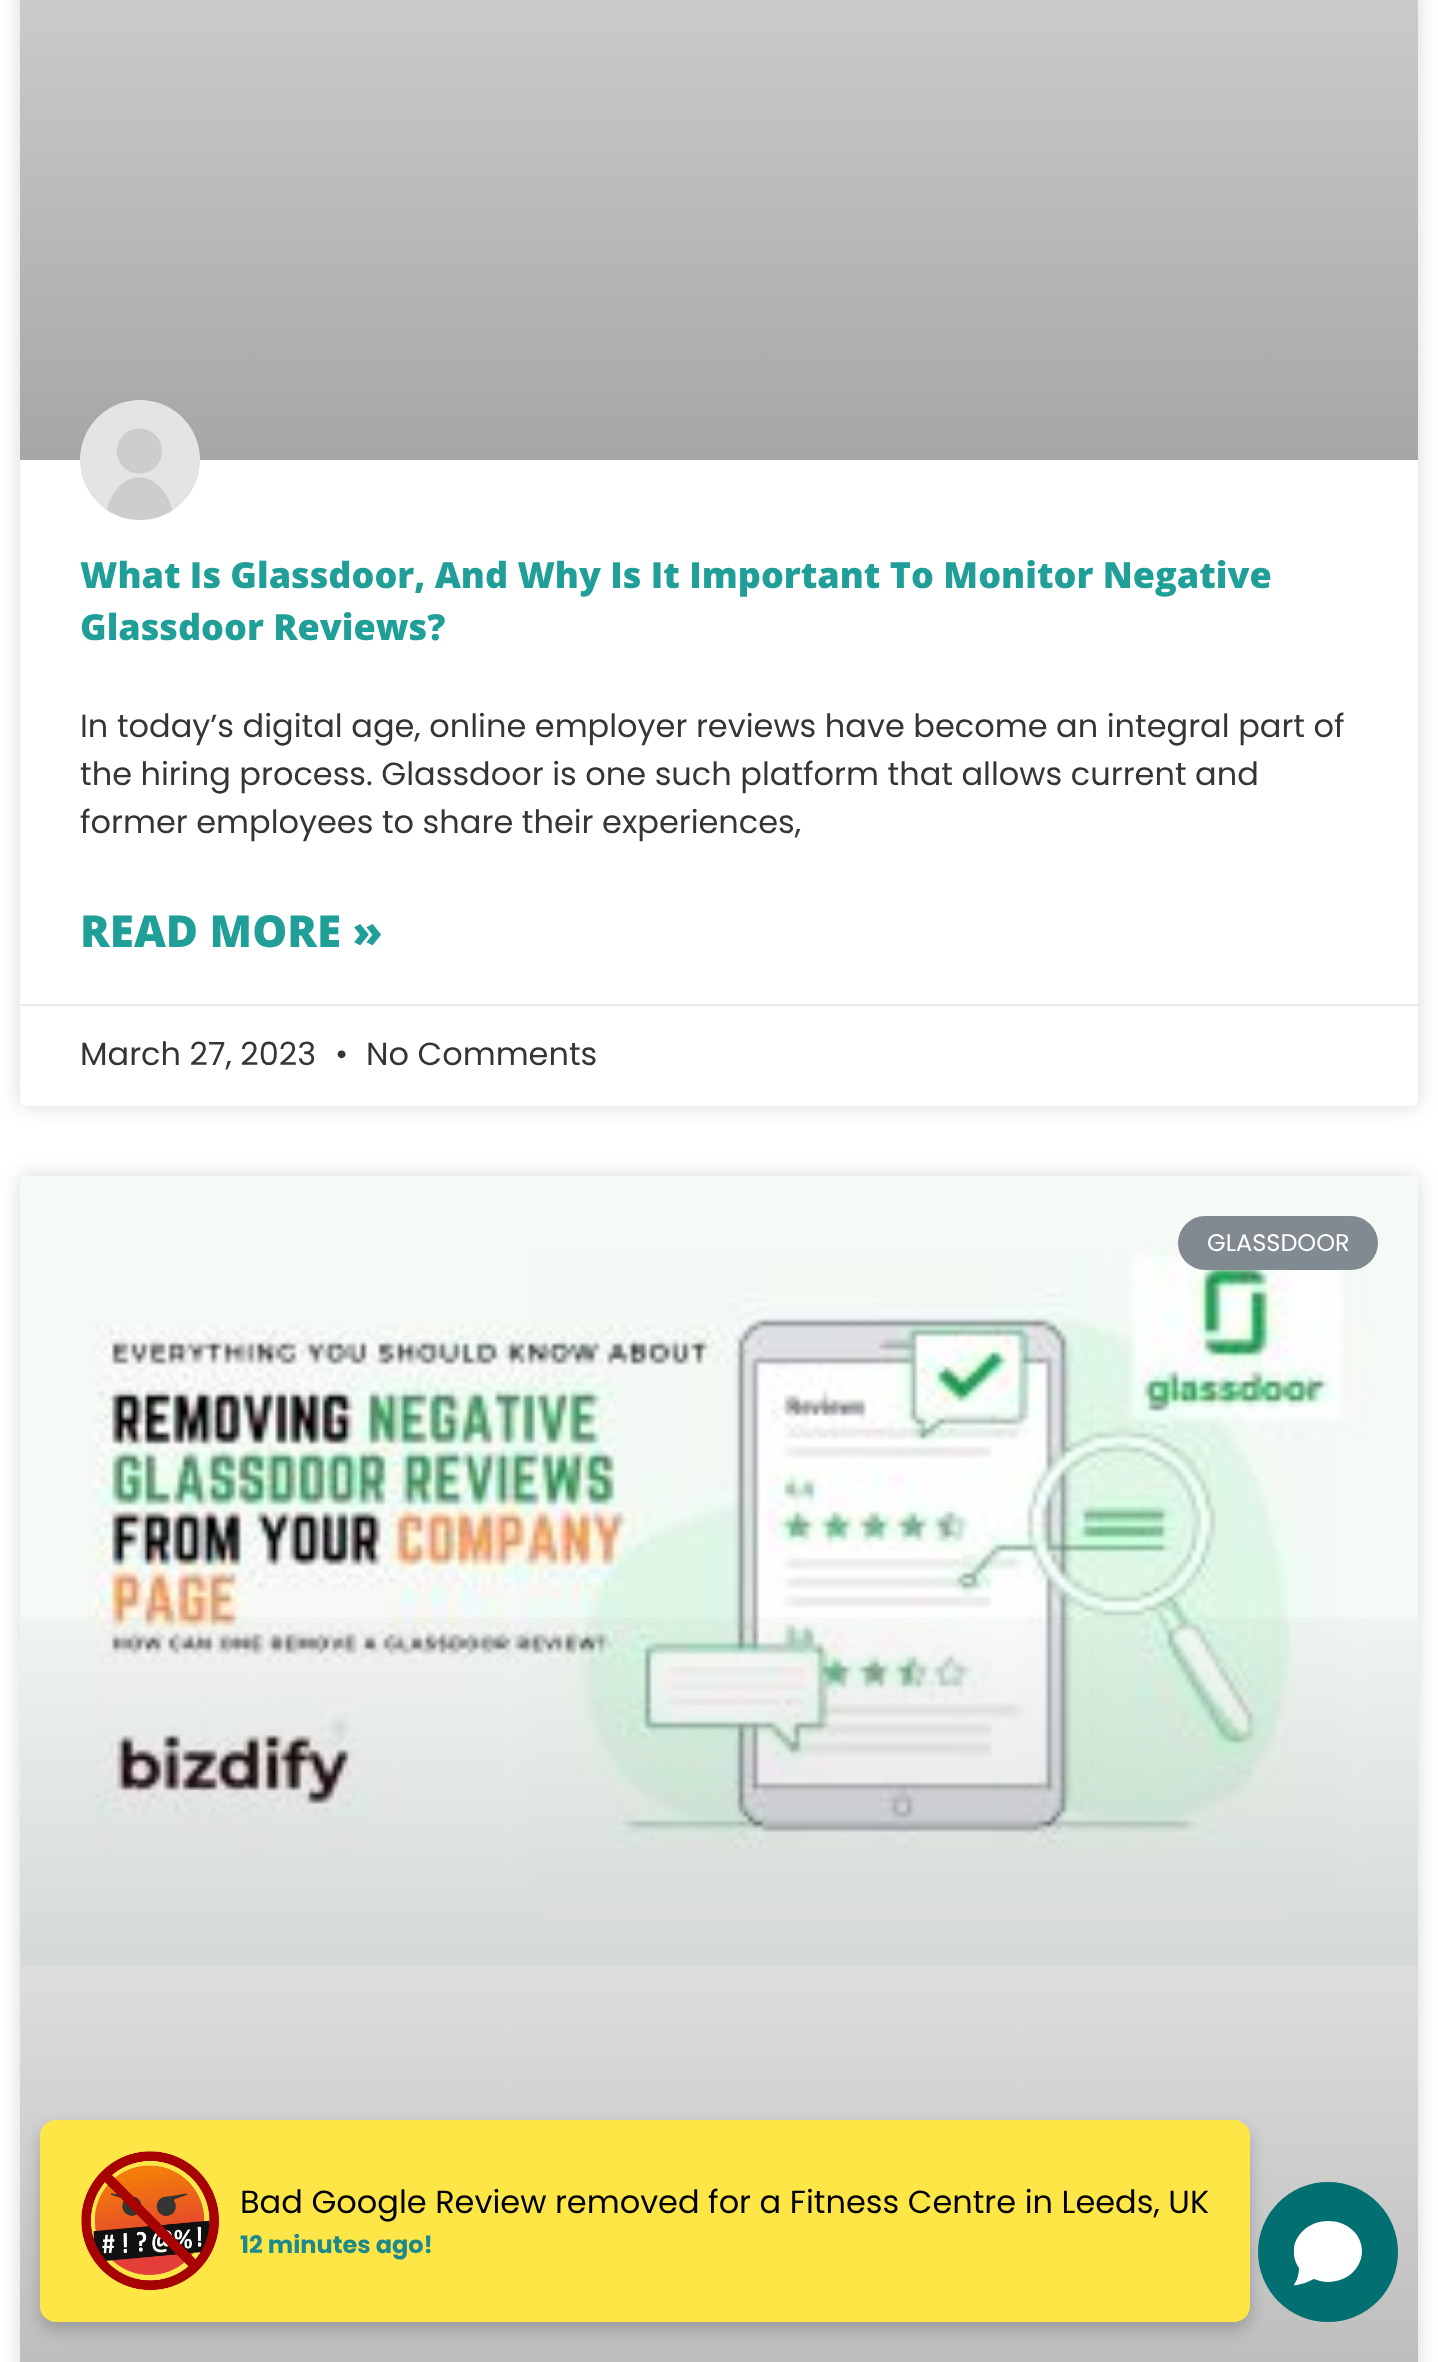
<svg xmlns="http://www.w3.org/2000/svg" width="1438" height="2362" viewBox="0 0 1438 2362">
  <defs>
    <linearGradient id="g1" gradientUnits="userSpaceOnUse" x1="719" y1="460" x2="719" y2="-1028"><stop offset="0" stop-color="#a6a6a6"/><stop offset="0.75" stop-color="#fff"/></linearGradient>
    <linearGradient id="g2" gradientUnits="userSpaceOnUse" x1="719" y1="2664" x2="719" y2="1176"><stop offset="0" stop-color="#000" stop-opacity="0.35"/><stop offset="0.75" stop-color="#000" stop-opacity="0"/></linearGradient>
    <clipPath id="clip1"><path d="M1294 2218h70v70H1294z"/></clipPath>
  </defs>
  <rect width="100%" height="100%" fill="#fff"/>
  <rect x="20" y="-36" width="1398" height="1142" rx="6" fill="#00000026" filter="blur(10px)"/>
  <rect x="20" y="-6" width="1398" height="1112" rx="6" fill="#fff"/>
  <path d="M20 0h1398v460H20z" fill="url(#g1)"/>
  <image x="80" y="400" width="120" height="120" href="img/1.png"/>
  <path d="M20 1004h1398v2H20z" fill="#eaeaea"/>
  <rect x="20" y="1176" width="1398" height="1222" rx="6" fill="#00000026" filter="blur(10px)"/>
  <rect x="20" y="1176" width="1398" height="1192" rx="6" fill="#fff"/>
  <image x="20" y="1176" width="1398" height="790" href="img/2.png"/>
  <path d="M20 1617h1398v745H20z" fill="url(#g2)"/>
  <rect x="1178" y="1216" width="200" height="54" rx="27" fill="#818a91"/>
  <rect x="40" y="2128" width="1210" height="202" rx="16" fill="#00000033" filter="blur(8px)"/>
  <rect x="40" y="2120" width="1210" height="202" rx="16" fill="#ffe647"/>
  <image x="81" y="2151" width="139" height="140" href="img/3.png"/>
  <circle cx="1328" cy="2252" r="70" fill="#026f71"/>
  <g clip-path="url(#clip1)">
    <path d="M1328 2221C1303 2221 1284 2246 1299 2268C1299 2272 1298 2276 1297 2279C1296 2283 1291 2286 1297 2285L1305 2283L1314 2279C1319 2281 1323 2282 1328 2282C1347 2282 1362 2268 1362 2251C1362 2234 1347 2221 1328 2221Z" fill="#fff"/>
  </g>
  <g font-family="Open Sans" font-size="36" font-weight="800" fill="#209e98">
    <text x="80" y="588">What Is Glassdoor, And Why Is It Important To Monitor Negative</text>
    <text x="80" y="640">Glassdoor Reviews?</text>
  </g>
  <g font-family="Poppins" font-size="32" fill="#353535">
    <text x="80" y="737">In today’s digital age, online employer reviews have become an integral part of</text>
    <text x="80" y="785">the hiring process. Glassdoor is one such platform that allows current and</text>
    <text x="80" y="833">former employees to share their experiences,</text>
  </g>
  <text x="80" y="947" font-family="Open Sans" font-size="44" font-weight="800" fill="#209e98">READ MORE »</text>
  <g font-family="Poppins" font-size="32" fill="#353535">
    <text x="80" y="1065">March 27, 2023</text>
    <text x="335" y="1065">•</text>
    <text x="366" y="1065">No Comments</text>
  </g>
  <text x="1207" y="1251" font-family="Poppins" font-size="24" fill="#fff">GLASSDOOR</text>
  <text x="240" y="2213" font-family="Poppins" font-size="32" fill="#000">Bad Google Review removed for a Fitness Centre in Leeds, UK</text>
  <text x="240" y="2253" font-family="Poppins" font-size="24" font-weight="bold" fill="#1d898b">12 minutes ago!</text>
</svg>
